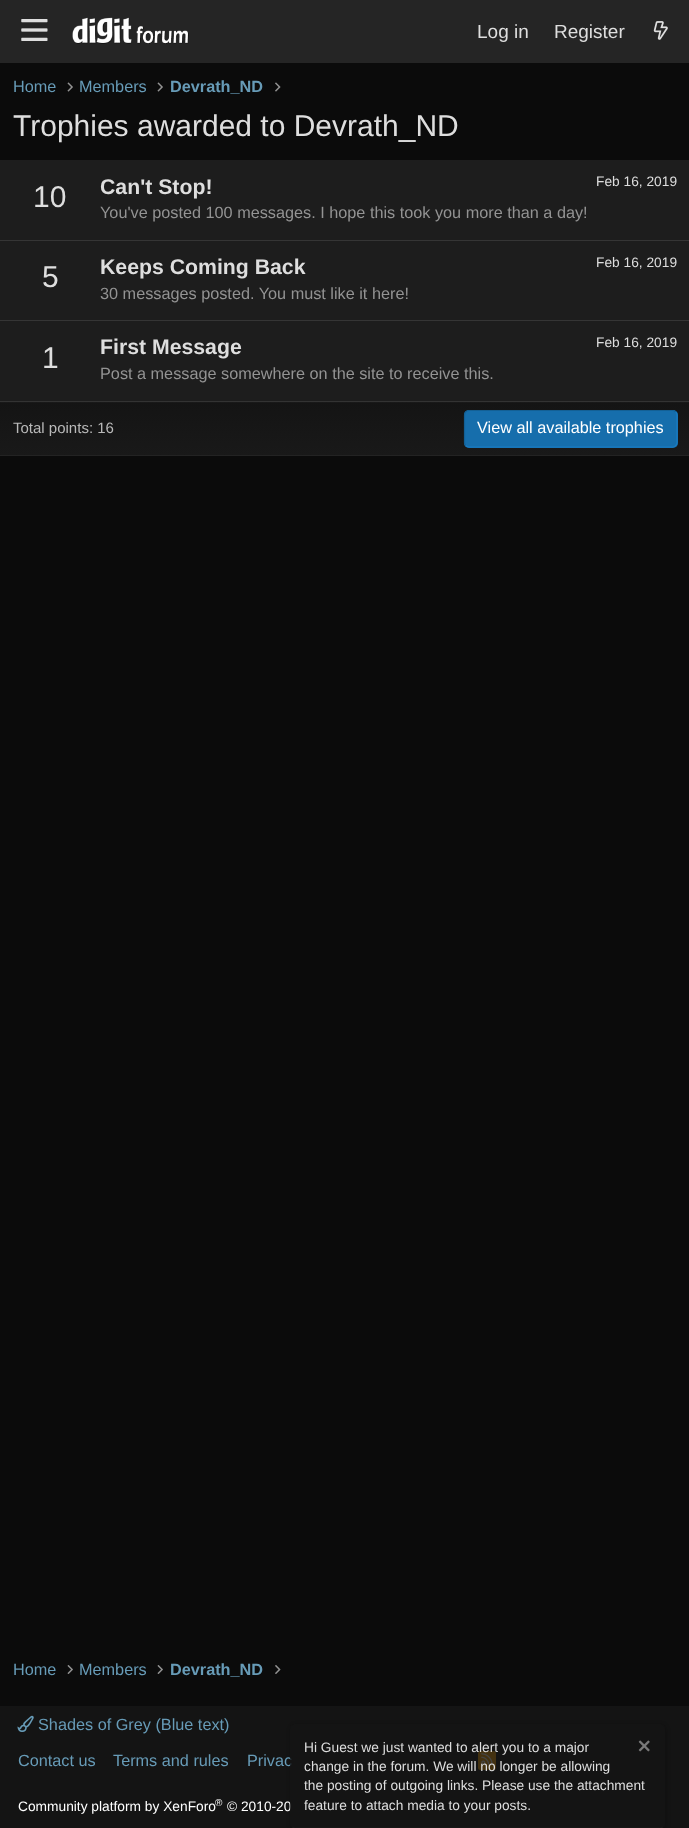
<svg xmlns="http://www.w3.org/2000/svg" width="689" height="1828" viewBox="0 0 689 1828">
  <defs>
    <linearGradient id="g1" gradientUnits="userSpaceOnUse" x1="345" y1="350" x2="345" y2="403"><stop offset="0" stop-color="#141414"/><stop offset="1" stop-color="#191919"/></linearGradient>
    <linearGradient id="g2" gradientUnits="userSpaceOnUse" x1="345" y1="402" x2="345" y2="455"><stop offset="0" stop-color="#141414"/><stop offset="1" stop-color="#191919"/></linearGradient>
    <clipPath id="clip1"><path d="M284 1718H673V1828H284ZM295 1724H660C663 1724 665 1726 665 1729V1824C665 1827 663 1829 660 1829H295C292 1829 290 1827 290 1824V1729C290 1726 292 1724 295 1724Z" clip-rule="evenodd"/></clipPath>
  </defs>
  <rect width="100%" height="100%" fill="#0b0b0b"/>
  <path d="M0 0h689v63H0z" fill="#252525"/>
  <image x="21" y="19" width="27" height="22" href="img/1.png"/>
  <image x="72" y="17" width="117" height="27" href="img/2.png"/>
  <image x="653" y="21" width="15" height="19" href="img/3.png"/>
  <image x="67" y="82" width="6" height="10" href="img/4.png"/>
  <image x="157" y="82" width="6" height="10" href="img/4.png"/>
  <image x="275" y="82" width="6" height="10" href="img/5.png"/>
  <path d="M0 160h689v241H0z" fill="#1d1d1d"/>
  <path d="M0 455h689v1H0z" fill="#232323"/>
  <path d="M0 240h689v1H0z" fill="#353535"/>
  <path d="M0 320h689v1H0z" fill="#353535"/>
  <path d="M0 402h689v1H0z" fill="url(#g1)"/>
  <path d="M0 403h689v52H0z" fill="url(#g2)"/>
  <path d="M0 401h689v1H0z" fill="#333"/>
  <rect x="464" y="410" width="214" height="38" rx="5" fill="#166eac"/>
  <path d="M675.5 412C676.5 412.5 677 414 677 415V442.5C677 443.5 676.5 445 675.5 445.5C675 446.5 673.5 447 672.5 447H469C467.5 447 466.5 446.5 465.5 445.5" fill="none" stroke="#197cc3" stroke-width="1.2"/>
  <path d="M465.5 445.5C465 445 464.5 443.5 464.5 442.5V415C464.5 414 465 412.5 465.5 412C466.5 411 467.5 410.5 469 410.5H672.5C673.5 410.5 675 411 675.5 412" fill="none" stroke="#136095" stroke-width="1.2"/>
  <image x="67" y="1665" width="6" height="9" href="img/6.png"/>
  <image x="157" y="1665" width="6" height="9" href="img/6.png"/>
  <image x="275" y="1665" width="6" height="9" href="img/7.png"/>
  <path d="M0 1706h689v122H0z" fill="#141414"/>
  <image x="17" y="1715" width="17" height="17" href="img/8.png"/>
  <rect x="478" y="1751" width="18" height="19" rx="2.5" fill="#ffa500"/>
  <image x="481" y="1753" width="12" height="12" href="img/9.png"/>
  <g clip-path="url(#clip1)">
    <rect x="291" y="1725" width="375" height="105" rx="5" fill="#00000040" filter="blur(2px)"/>
  </g>
  <g font-family="Liberation Sans" font-size="19" fill="#dedede">
    <text x="477" y="38">Log in</text>
    <text x="554" y="38">Register</text>
  </g>
  <g font-family="Liberation Sans" font-size="16.25" fill="#679bb7">
    <text x="13" y="92">Home</text>
    <text x="79" y="92">Members</text>
  </g>
  <text x="170" y="92" font-family="Liberation Sans" font-size="16.25" font-weight="bold" fill="#679bb7">Devrath_ND</text>
  <g font-family="Liberation Sans" font-size="30" fill="#dedede">
    <text x="13" y="136">Trophies awarded to Devrath_ND</text>
    <text x="33" y="207">10</text>
  </g>
  <text x="100" y="194" font-family="Liberation Sans" font-size="21.25" font-weight="bold" fill="#dedede">Can't Stop!</text>
  <text x="596" y="186" font-family="Liberation Sans" font-size="13.75" fill="#dedede">Feb 16, 2019</text>
  <text x="100" y="218" font-family="Liberation Sans" font-size="16.25" fill="#939393">You've posted 100 messages. I hope this took you more than a day!</text>
  <text x="42" y="287" font-family="Liberation Sans" font-size="30" fill="#dedede">5</text>
  <text x="100" y="274" font-family="Liberation Sans" font-size="21.25" font-weight="bold" fill="#dedede">Keeps Coming Back</text>
  <text x="596" y="267" font-family="Liberation Sans" font-size="13.75" fill="#dedede">Feb 16, 2019</text>
  <text x="100" y="299" font-family="Liberation Sans" font-size="16.25" fill="#939393">30 messages posted. You must like it here!</text>
  <text x="42" y="368" font-family="Liberation Sans" font-size="30" fill="#dedede">1</text>
  <text x="100" y="354" font-family="Liberation Sans" font-size="21.25" font-weight="bold" fill="#dedede">First Message</text>
  <text x="596" y="347" font-family="Liberation Sans" font-size="13.75" fill="#dedede">Feb 16, 2019</text>
  <text x="100" y="379" font-family="Liberation Sans" font-size="16.25" fill="#939393">Post a message somewhere on the site to receive this.</text>
  <text x="13" y="433" font-family="Liberation Sans" font-size="15" fill="#b9b9b9">Total points: 16</text>
  <text x="477" y="433" font-family="Liberation Sans" font-size="16.25" fill="#fff">View all available trophies</text>
  <g font-family="Liberation Sans" font-size="16.25" fill="#679bb7">
    <text x="13" y="1675">Home</text>
    <text x="79" y="1675">Members</text>
  </g>
  <text x="170" y="1675" font-family="Liberation Sans" font-size="16.25" font-weight="bold" fill="#679bb7">Devrath_ND</text>
  <g font-family="Liberation Sans" font-size="16.25" fill="#679bb7">
    <text x="38" y="1730">Shades of Grey (Blue text)</text>
    <text x="18" y="1766">Contact us</text>
    <text x="113" y="1766">Terms and rules</text>
    <text x="247" y="1766">Privac</text>
  </g>
  <text x="18" y="1811" font-family="Liberation Sans" font-size="13.75" fill="#fff">Community platform by XenForo</text>
  <text x="215" y="1806" font-family="Liberation Sans" font-size="10" fill="#fff">®</text>
  <text x="227" y="1811" font-family="Liberation Sans" font-size="13.75" fill="#fff">© 2010-20</text>
  <rect x="290" y="1724" width="375" height="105" rx="5" fill="#141414cc"/>
  <path d="M663 1827L660 1828H295L292 1827" fill="none" stroke="#1b1b1b" stroke-width="1.2"/>
  <text x="304" y="1752" font-family="Liberation Sans" font-size="13.75" fill="#dedede">Hi Guest we just wanted to alert you to a major</text>
  <image x="638" y="1740" width="12" height="12" href="img/10.png"/>
  <g font-family="Liberation Sans" font-size="13.75" fill="#dedede">
    <text x="304" y="1771">change in the forum. We will no longer be allowing</text>
    <text x="304" y="1790">the posting of outgoing links. Please use the attachment</text>
    <text x="304" y="1810">feature to attach media to your posts.</text>
  </g>
</svg>
